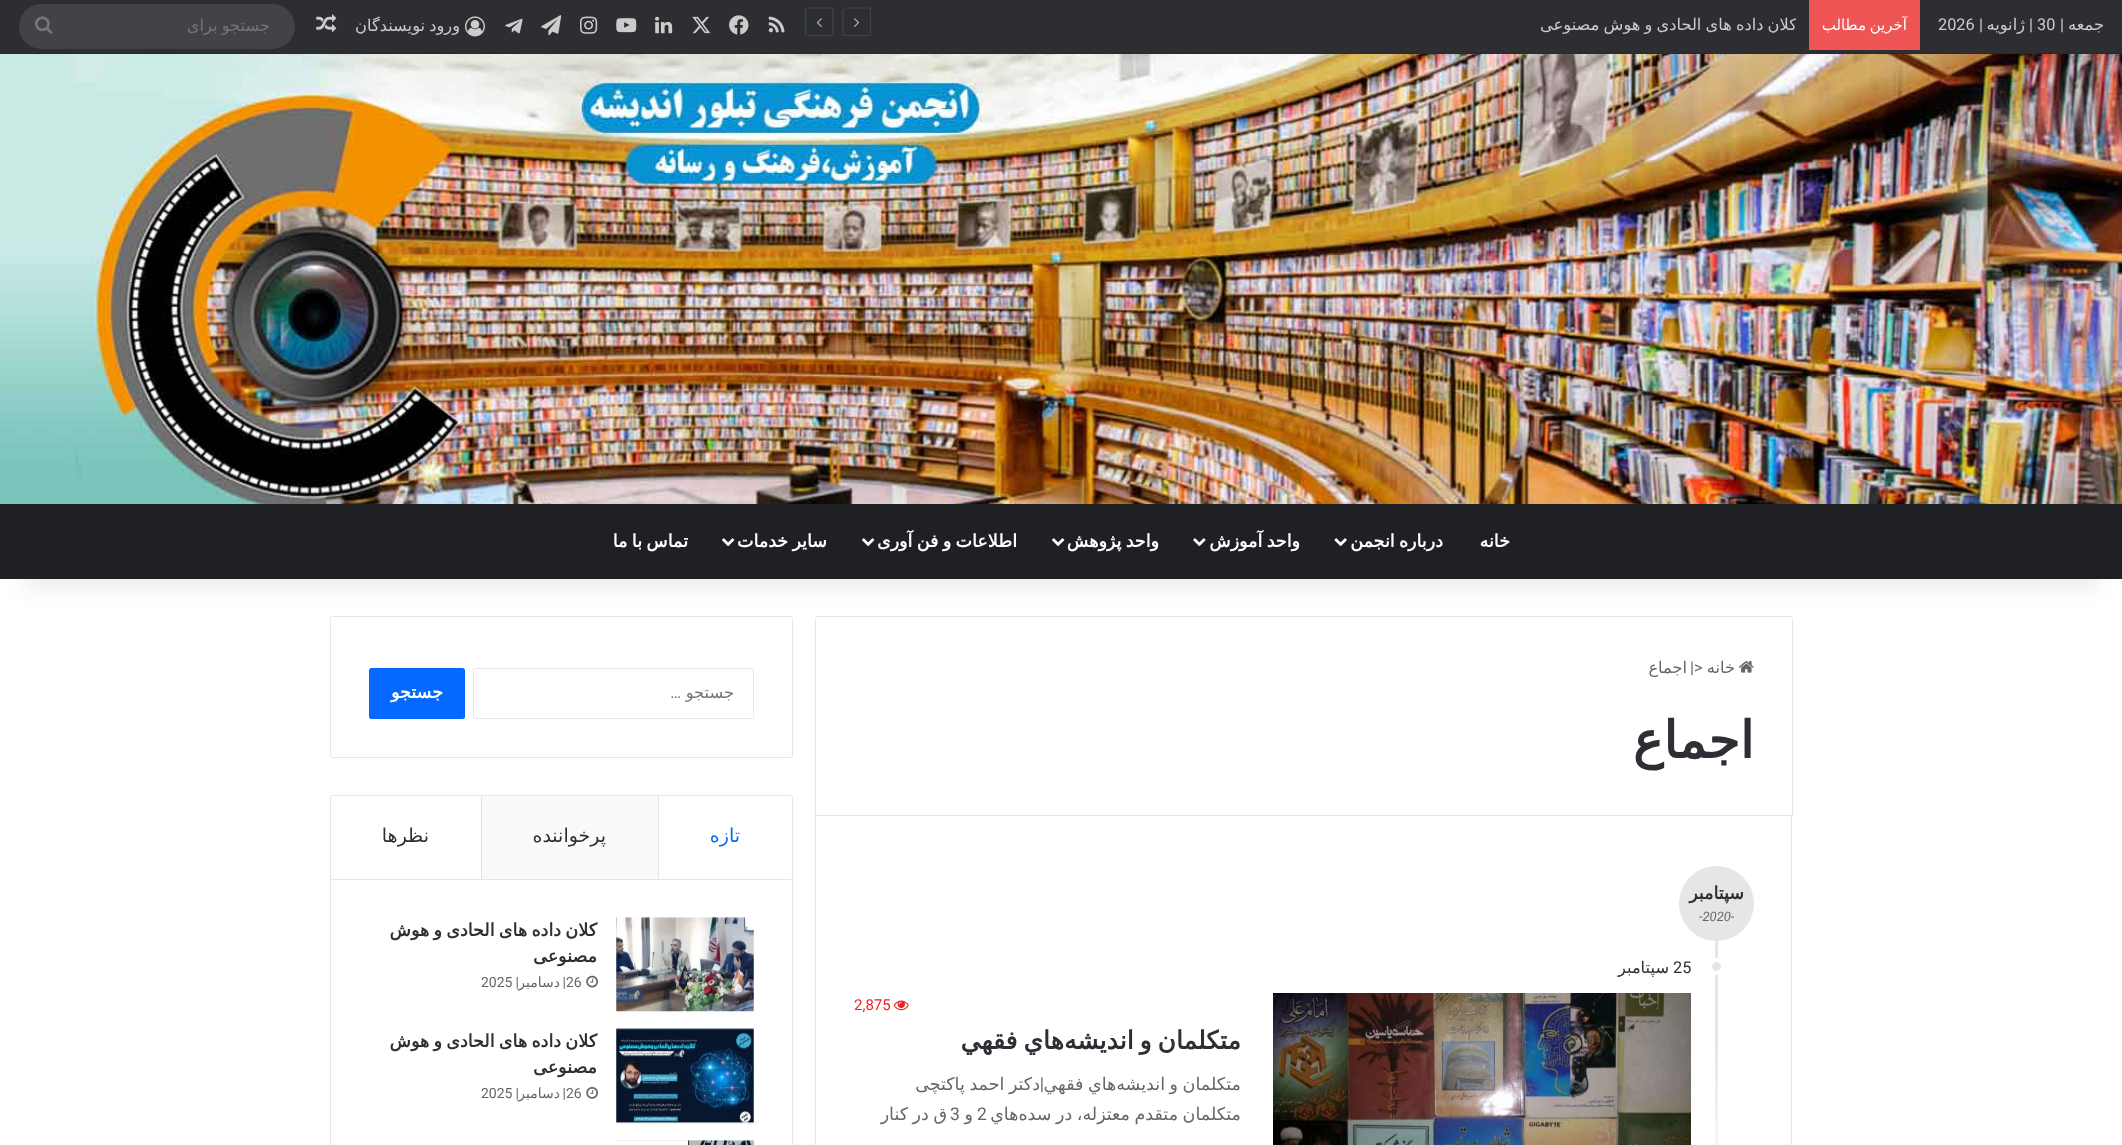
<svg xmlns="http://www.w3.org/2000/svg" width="2122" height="1145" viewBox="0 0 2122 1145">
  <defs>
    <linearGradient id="g1" gradientUnits="userSpaceOnUse" x1="1716" y1="1041" x2="1716" y2="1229"><stop offset="0" stop-color="#e5e5e5"/><stop offset="0.8" stop-color="#fff"/></linearGradient>
    <clipPath id="clip1"><path d="M1541 0h255v50H1541z"/></clipPath>
  </defs>
  <rect width="100%" height="100%" fill="#fff"/>
  <path d="M817.5 616.5H1790.5C1791.5 616.5 1792.5 617.5 1792.5 618.5V815.5H815.5V618.5C815.5 617.5 816.5 616.5 817.5 616.5Z" fill="none" stroke="#e6e6e6"/>
  <rect x="330.5" y="616.5" width="462" height="141" rx="2" fill="none" stroke="#e6e6e6"/>
  <path d="M25 56h2073v529H25z" fill="#0000001a" filter="blur(12.5px)"/>
  <path d="M0 0h2122v53H0z" fill="#2c2e32"/>
  <path d="M0 53h2122v1H0z" fill="#28292d"/>
  <path d="M1809 0h111v50H1809z" fill="#f05555"/>
  <path d="M868.5 35.5H845C844 35.5 843 35 843 34V10C843 9 844 8 845 8H868.5C869.5 8 870.5 9 870.5 10V34C870.5 35 869.5 35.5 868.5 35.5Z" fill="none" stroke="#414347" stroke-width="1.2"/>
  <image x="854" y="18" width="6" height="10" href="img/1.png"/>
  <path d="M831 35.5H807.5C806.5 35.5 805.5 35 805.5 34V10C805.5 9 806.5 8 807.5 8H831C832 8 833 9 833 10V34C833 35 832 35.5 831 35.5Z" fill="none" stroke="#414347" stroke-width="1.2"/>
  <image x="816" y="18" width="6" height="10" href="img/2.png"/>
  <image x="768" y="16" width="17" height="17" href="img/3.png"/>
  <image x="729" y="15" width="20" height="20" href="img/4.png"/>
  <image x="692" y="16" width="19" height="18" href="img/5.png"/>
  <image x="655" y="16" width="18" height="18" href="img/6.png"/>
  <image x="616" y="18" width="21" height="15" href="img/7.png"/>
  <image x="580" y="16" width="18" height="18" href="img/8.png"/>
  <image x="541" y="15" width="21" height="21" href="img/9.png"/>
  <image x="505" y="18" width="18" height="16" href="img/10.png"/>
  <image x="465" y="16" width="20" height="21" href="img/11.png"/>
  <image x="316" y="14" width="21" height="19" href="img/12.png"/>
  <rect x="19" y="4" width="276" height="45" rx="22.5" fill="#414347"/>
  <image x="35" y="16" width="18" height="18" href="img/13.png"/>
  <image x="0" y="54" width="2122" height="450" href="img/14.png"/>
  <path d="M0 504h2122v75H0z" fill="#1f2024"/>
  <image x="1334" y="538" width="13" height="9" href="img/15.png"/>
  <image x="1193" y="538" width="13" height="9" href="img/16.png"/>
  <image x="1052" y="538" width="13" height="9" href="img/17.png"/>
  <image x="862" y="538" width="13" height="9" href="img/17.png"/>
  <image x="722" y="538" width="13" height="9" href="img/17.png"/>
  <image x="1739" y="661" width="15" height="12" href="img/18.png"/>
  <path d="M1791 816h1v329H1791z" fill="#e6e6e6"/>
  <path d="M815 816h1v329H815z" fill="#e6e6e6"/>
  <path d="M1715 866h3v175H1715z" fill="#e6e6e6"/>
  <circle cx="1716.5" cy="903.5" r="37.5" fill="#e6e6e6"/>
  <circle cx="1716.5" cy="966.5" r="6.5" fill="#e6e6e6" stroke="#fff" stroke-width="4"/>
  <image x="1273" y="993" width="418" height="152" href="img/19.png"/>
  <image x="893" y="1000" width="16" height="11" href="img/20.png"/>
  <path d="M1715 1041h3v104H1715z" fill="url(#g1)"/>
  <rect x="473.5" y="668.5" width="280" height="50" rx="2" fill="none" stroke="#e6e6e6"/>
  <rect x="369" y="668" width="96" height="51" rx="2.5" fill="#0669ff"/>
  <rect x="330.5" y="795.5" width="462" height="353" rx="2" fill="none" stroke="#e6e6e6"/>
  <path d="M331 879h460v1H331z" fill="#e6e6e6"/>
  <path d="M658 879V796H659V878Z" fill="#e4e4e6"/>
  <path d="M481 796h177v83H481z" fill="#fafafa"/>
  <path d="M481 879V796H482V878Z" fill="#e1e1e1"/>
  <image x="616" y="917" width="138" height="95" href="img/21.png"/>
  <image x="586" y="975" width="12" height="13" href="img/22.png"/>
  <image x="616" y="1028" width="138" height="96" href="img/23.png"/>
  <image x="586" y="1087" width="12" height="12" href="img/24.png"/>
  <image x="616" y="1140" width="138" height="5" href="img/25.png"/>
  <text x="2104" y="30" font-family="DejaVu Sans" font-size="16.25" direction="rtl" fill="#ccc">جمعه</text>
  <text x="2064" y="30" font-family="Roboto" font-size="16.25" direction="rtl" fill="#ccc">|</text>
  <text x="2037" y="30" font-family="Roboto" font-size="16.25" fill="#ccc">30</text>
  <text x="2033" y="30" font-family="Roboto" font-size="16.25" direction="rtl" fill="#ccc">|</text>
  <text x="2025" y="30" font-family="DejaVu Sans" font-size="16.25" direction="rtl" fill="#ccc">ژانویه</text>
  <text x="1983" y="30" font-family="Roboto" font-size="16.25" direction="rtl" fill="#ccc">|</text>
  <text x="1938" y="30" font-family="Roboto" font-size="16.25" fill="#ccc">2026</text>
  <text x="1907" y="30" word-spacing="-1" font-family="DejaVu Sans" font-size="15" direction="rtl" fill="#fff">آخرین مطالب</text>
  <g clip-path="url(#clip1)">
    <text x="1797" y="30" word-spacing="-1" font-family="DejaVu Sans" font-size="16.25" direction="rtl" fill="#ccc">کلان داده های الحادی و هوش مصنوعی</text>
  </g>
  <text x="460" y="31" word-spacing="-1" font-family="DejaVu Sans" font-size="16.25" direction="rtl" fill="#ccc">ورود نویسندگان</text>
  <text x="270" y="31" word-spacing="-1" font-family="DejaVu Sans" font-size="16.25" direction="rtl" fill="#757575">جستجو برای</text>
  <g font-family="DejaVu Sans" font-size="17.5" font-weight="bold" direction="rtl" fill="#fff">
    <text x="1510" y="547">خانه</text>
    <text x="1443" y="547" word-spacing="-1.25">درباره انجمن</text>
    <text x="1300" y="547" word-spacing="-1.25">واحد آموزش</text>
    <text x="1159" y="547" word-spacing="-1.25">واحد پژوهش</text>
    <text x="1017" y="547" word-spacing="-1.25">اطلاعات و فن آوری</text>
    <text x="827" y="547" word-spacing="-1.25">سایر خدمات</text>
    <text x="688" y="547" word-spacing="-1.25">تماس با ما</text>
  </g>
  <text x="1735" y="673" font-family="DejaVu Sans" font-size="16.25" direction="rtl" fill="#666">خانه</text>
  <text x="1690" y="673" font-family="Roboto" font-size="16.25" fill="#666">|&gt;</text>
  <text x="1687" y="673" font-family="DejaVu Sans" font-size="16.25" direction="rtl" fill="#666">اجماع</text>
  <text x="1754" y="758" font-family="DejaVu Sans" font-size="51" font-weight="bold" direction="rtl" fill="#2c2f34">اجماع</text>
  <text x="1744" y="899" font-family="DejaVu Sans" font-size="17.5" font-weight="bold" direction="rtl" fill="#2c2f34">سپتامبر</text>
  <text x="1699" y="921" font-family="Roboto" font-size="13" font-style="italic" fill="#666">-2020-</text>
  <text x="1673" y="973" font-family="Roboto" font-size="16.25" fill="#2c2f34">25</text>
  <text x="1669" y="973" font-family="DejaVu Sans" font-size="16.25" direction="rtl" fill="#2c2f34">سپتامبر</text>
  <text x="854" y="1010" font-family="Roboto" font-size="15" fill="#f11e1e">2,875</text>
  <text x="1241" y="1049" word-spacing="-2" font-family="DejaVu Sans" font-size="25" font-weight="bold" direction="rtl" fill="#2c2f34">متكلمان و انديشه‌هاي فقهي</text>
  <g font-family="DejaVu Sans" font-size="17.5" direction="rtl" fill="#666">
    <text x="1241" y="1090" word-spacing="-1">متكلمان و انديشه‌هاي فقهي</text>
    <text x="1040" y="1090" word-spacing="-1">دکتر احمد پاکتچی</text>
  </g>
  <text x="1044" y="1090" font-family="Roboto" font-size="17.5" direction="rtl" fill="#666">|</text>
  <text x="1241" y="1120" word-spacing="-1" font-family="DejaVu Sans" font-size="17.5" direction="rtl" fill="#666">متكلمان متقدم معتزله، در سده‌هاي</text>
  <text x="977" y="1120" font-family="Roboto" font-size="17.5" fill="#666">2</text>
  <text x="973" y="1120" font-family="DejaVu Sans" font-size="17.5" direction="rtl" fill="#666">و</text>
  <text x="950" y="1120" font-family="Roboto" font-size="17.5" fill="#666">3</text>
  <text x="947" y="1120" word-spacing="-1" font-family="DejaVu Sans" font-size="17.5" direction="rtl" fill="#666">ق در كنار</text>
  <text x="734" y="698" font-family="DejaVu Sans" font-size="16.25" direction="rtl" fill="#757575">جستجو</text>
  <text x="681" y="698" font-family="Roboto" font-size="16.25" direction="rtl" fill="#757575">…</text>
  <text x="443" y="698" font-family="DejaVu Sans" font-size="17.5" font-weight="bold" direction="rtl" fill="#fff">جستجو</text>
  <text x="740" y="842" font-family="DejaVu Sans" font-size="19" direction="rtl" fill="#0669ff">تازه</text>
  <g font-family="DejaVu Sans" font-size="19" direction="rtl" fill="#2c2f34">
    <text x="606" y="842">پرخواننده</text>
    <text x="429" y="842">نظرها</text>
  </g>
  <g font-family="DejaVu Sans" font-size="17.5" font-weight="bold" direction="rtl" fill="#2c2f34">
    <text x="597" y="936" word-spacing="-1.25">کلان داده های الحادی و هوش</text>
    <text x="597" y="962">مصنوعی</text>
  </g>
  <text x="566" y="987" font-family="Roboto" font-size="14" fill="#666">26</text>
  <text x="566" y="987" font-family="Roboto" font-size="14" direction="rtl" fill="#666">|</text>
  <text x="560" y="987" font-family="DejaVu Sans" font-size="14" direction="rtl" fill="#666">دسامبر</text>
  <text x="519" y="987" font-family="Roboto" font-size="14" direction="rtl" fill="#666">|</text>
  <text x="481" y="987" font-family="Roboto" font-size="14" fill="#666">2025</text>
  <g font-family="DejaVu Sans" font-size="17.5" font-weight="bold" direction="rtl" fill="#2c2f34">
    <text x="597" y="1047" word-spacing="-1.25">کلان داده های الحادی و هوش</text>
    <text x="597" y="1073">مصنوعی</text>
  </g>
  <text x="566" y="1098" font-family="Roboto" font-size="14" fill="#666">26</text>
  <text x="566" y="1098" font-family="Roboto" font-size="14" direction="rtl" fill="#666">|</text>
  <text x="560" y="1098" font-family="DejaVu Sans" font-size="14" direction="rtl" fill="#666">دسامبر</text>
  <text x="519" y="1098" font-family="Roboto" font-size="14" direction="rtl" fill="#666">|</text>
  <text x="481" y="1098" font-family="Roboto" font-size="14" fill="#666">2025</text>
</svg>
